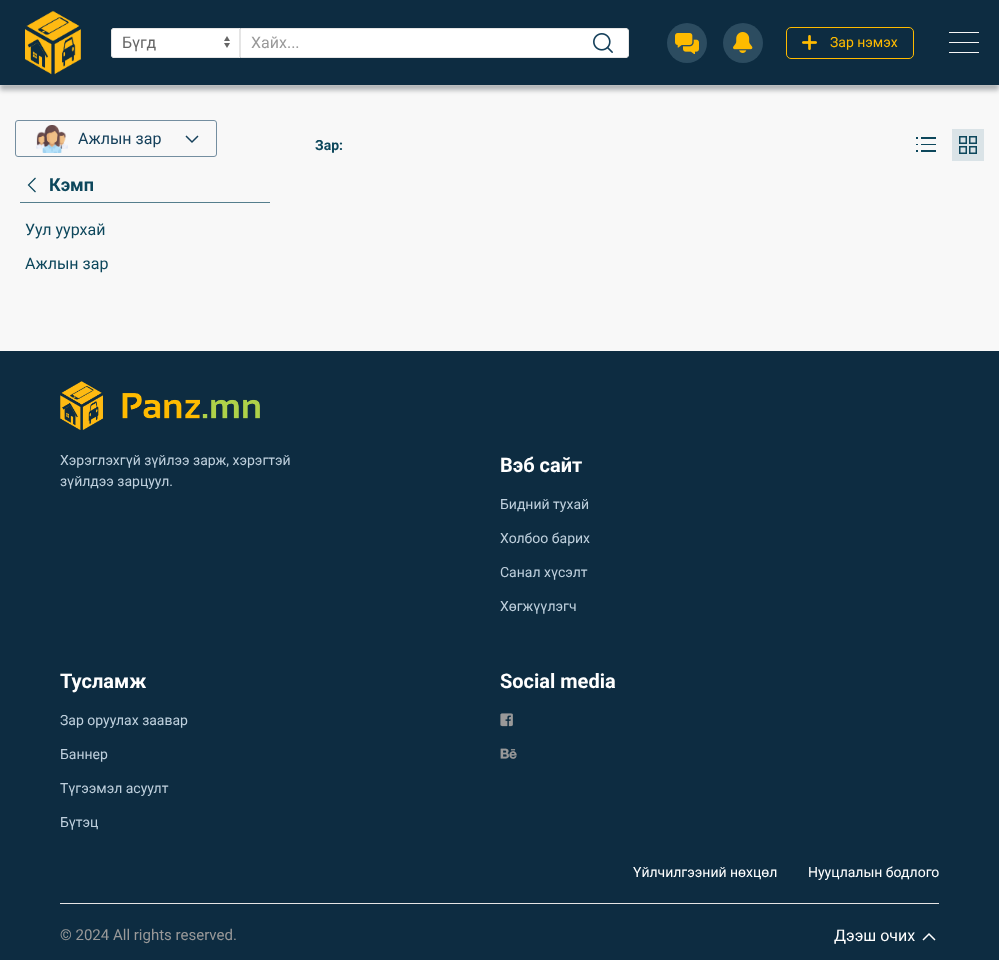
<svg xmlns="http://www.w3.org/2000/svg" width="999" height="960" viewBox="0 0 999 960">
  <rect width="100%" height="100%" fill="#f8f8f8"/>
  <path d="M0 5h999v85H0z" fill="#000a124d" filter="blur(2.5px)"/>
  <path d="M0 0h999v85H0z" fill="#f5f5f580" filter="blur(1px)"/>
  <path d="M0 0h999v85H0z" fill="#0d2c41"/>
  <image x="25" y="10" width="56" height="65" href="img/1.png"/>
  <path d="M114 28H240V58H114C112.5 58 111 56.5 111 55V31C111 29.5 112.5 28 114 28Z" fill="#fff"/>
  <image x="224" y="36" width="6" height="12" href="img/2.png"/>
  <path d="M114 28.5H239.5V57.5H114C112.5 57.5 111.5 56.5 111.5 55V31C111.5 29.5 112.5 28.5 114 28.5Z" fill="none" stroke="#e5e5e5"/>
  <path d="M240.5 28.5H626C627.5 28.5 628.5 29.5 628.5 31V55C628.5 56.5 627.5 57.5 626 57.5H240.5Z" fill="#fff" stroke="#e5e5e5"/>
  <image x="593" y="33" width="20" height="20" href="img/3.png"/>
  <circle cx="687" cy="43" r="20" fill="#2c4c60"/>
  <image x="675" y="33" width="24" height="21" href="img/4.png"/>
  <circle cx="743" cy="43" r="20" fill="#2c4c60"/>
  <image x="733" y="32" width="20" height="21" href="img/5.png"/>
  <rect x="786.5" y="27.5" width="127" height="31" rx="4.5" fill="none" stroke="#fb0"/>
  <image x="802" y="35" width="15" height="15" href="img/6.png"/>
  <path d="M949 32h30v1H949z" fill="#f7f7f7"/>
  <path d="M949 42h30v1H949z" fill="#f7f7f7"/>
  <path d="M949 52h30v1H949z" fill="#f7f7f7"/>
  <rect x="15.5" y="120.5" width="201" height="36" rx="2.5" fill="none" stroke="#748ea0"/>
  <image x="36" y="125" width="32" height="28" href="img/7.png"/>
  <path d="M198 136L192 142L186 136" fill="none" stroke="#15405b" stroke-width="1.5"/>
  <path d="M20 202h250v1H20z" fill="#557e8d"/>
  <path d="M35.5 192L28.5 185L35.5 178" fill="none" stroke="#0d475c" stroke-width="1.2"/>
  <image x="916" y="137" width="20" height="15" href="img/8.png"/>
  <path d="M952 129h32v32H952z" fill="#dae3e7"/>
  <path d="M959.75 136.75h6.5v6.5H959.75z" fill="none" stroke="#0d475c" stroke-width="1.5"/>
  <path d="M969.75 136.75h6.5v6.5H969.75z" fill="none" stroke="#0d475c" stroke-width="1.5"/>
  <path d="M959.75 146.75h6.5v6.5H959.75z" fill="none" stroke="#0d475c" stroke-width="1.5"/>
  <path d="M969.75 146.75h6.5v6.5H969.75z" fill="none" stroke="#0d475c" stroke-width="1.5"/>
  <path d="M0 351h999v609H0z" fill="#0d2c41"/>
  <image x="60" y="381" width="200" height="49" href="img/9.png"/>
  <image x="500" y="713" width="13" height="14" href="img/10.png"/>
  <image x="500" y="748" width="17" height="11" href="img/11.png"/>
  <path d="M60 903h879v1H60z" fill="#e5e5e5"/>
  <path d="M923 940L929 934L935 940" fill="none" stroke="#fff" stroke-width="1.5"/>
  <text x="122" y="48" font-family="Roboto" font-size="16" fill="#666">Бүгд</text>
  <text x="251" y="48" font-family="Roboto" font-size="16" fill="#999">Хайх...</text>
  <text x="830" y="47" font-family="Roboto" font-size="14" fill="#fb0">Зар нэмэх</text>
  <text x="78" y="144" font-family="Roboto" font-size="16" fill="#15405b">Ажлын зар</text>
  <text x="49" y="191" font-family="Roboto" font-size="18" font-weight="bold" fill="#0d475c">Кэмп</text>
  <g font-family="Roboto" font-size="16" fill="#0d475c">
    <text x="25" y="235">Уул уурхай</text>
    <text x="25" y="269">Ажлын зар</text>
  </g>
  <text x="315" y="150" font-family="Roboto" font-size="14" font-weight="bold" fill="#0d475c">Зар:</text>
  <g font-family="Roboto" font-size="14" fill="#bfd0dd">
    <text x="60" y="465">Хэрэглэхгүй зүйлээ зарж, хэрэгтэй</text>
    <text x="60" y="486">зүйлдээ зарцуул.</text>
  </g>
  <text x="500" y="472" font-family="Roboto" font-size="20" font-weight="bold" fill="#fff">Вэб сайт</text>
  <g font-family="Roboto" font-size="14" fill="#bfd0dd">
    <text x="500" y="509">Бидний тухай</text>
    <text x="500" y="543">Холбоо барих</text>
    <text x="500" y="577">Санал хүсэлт</text>
    <text x="500" y="611">Хөгжүүлэгч</text>
  </g>
  <text x="60" y="688" font-family="Roboto" font-size="20" font-weight="bold" fill="#fff">Тусламж</text>
  <g font-family="Roboto" font-size="14" fill="#bfd0dd">
    <text x="60" y="725">Зар оруулах заавар</text>
    <text x="60" y="759">Баннер</text>
    <text x="60" y="793">Түгээмэл асуулт</text>
    <text x="60" y="827">Бүтэц</text>
  </g>
  <text x="500" y="688" font-family="Roboto" font-size="20" font-weight="bold" fill="#fff">Social media</text>
  <g font-family="Roboto" font-size="14" fill="#fff">
    <text x="633" y="877">Үйлчилгээний нөхцөл</text>
    <text x="808" y="877">Нууцлалын бодлого</text>
  </g>
  <text x="60" y="940" font-family="Roboto" font-size="15" fill="#999">© 2024 All rights reserved.</text>
  <text x="834" y="941" font-family="Roboto" font-size="16" fill="#fff">Дээш очих</text>
</svg>
